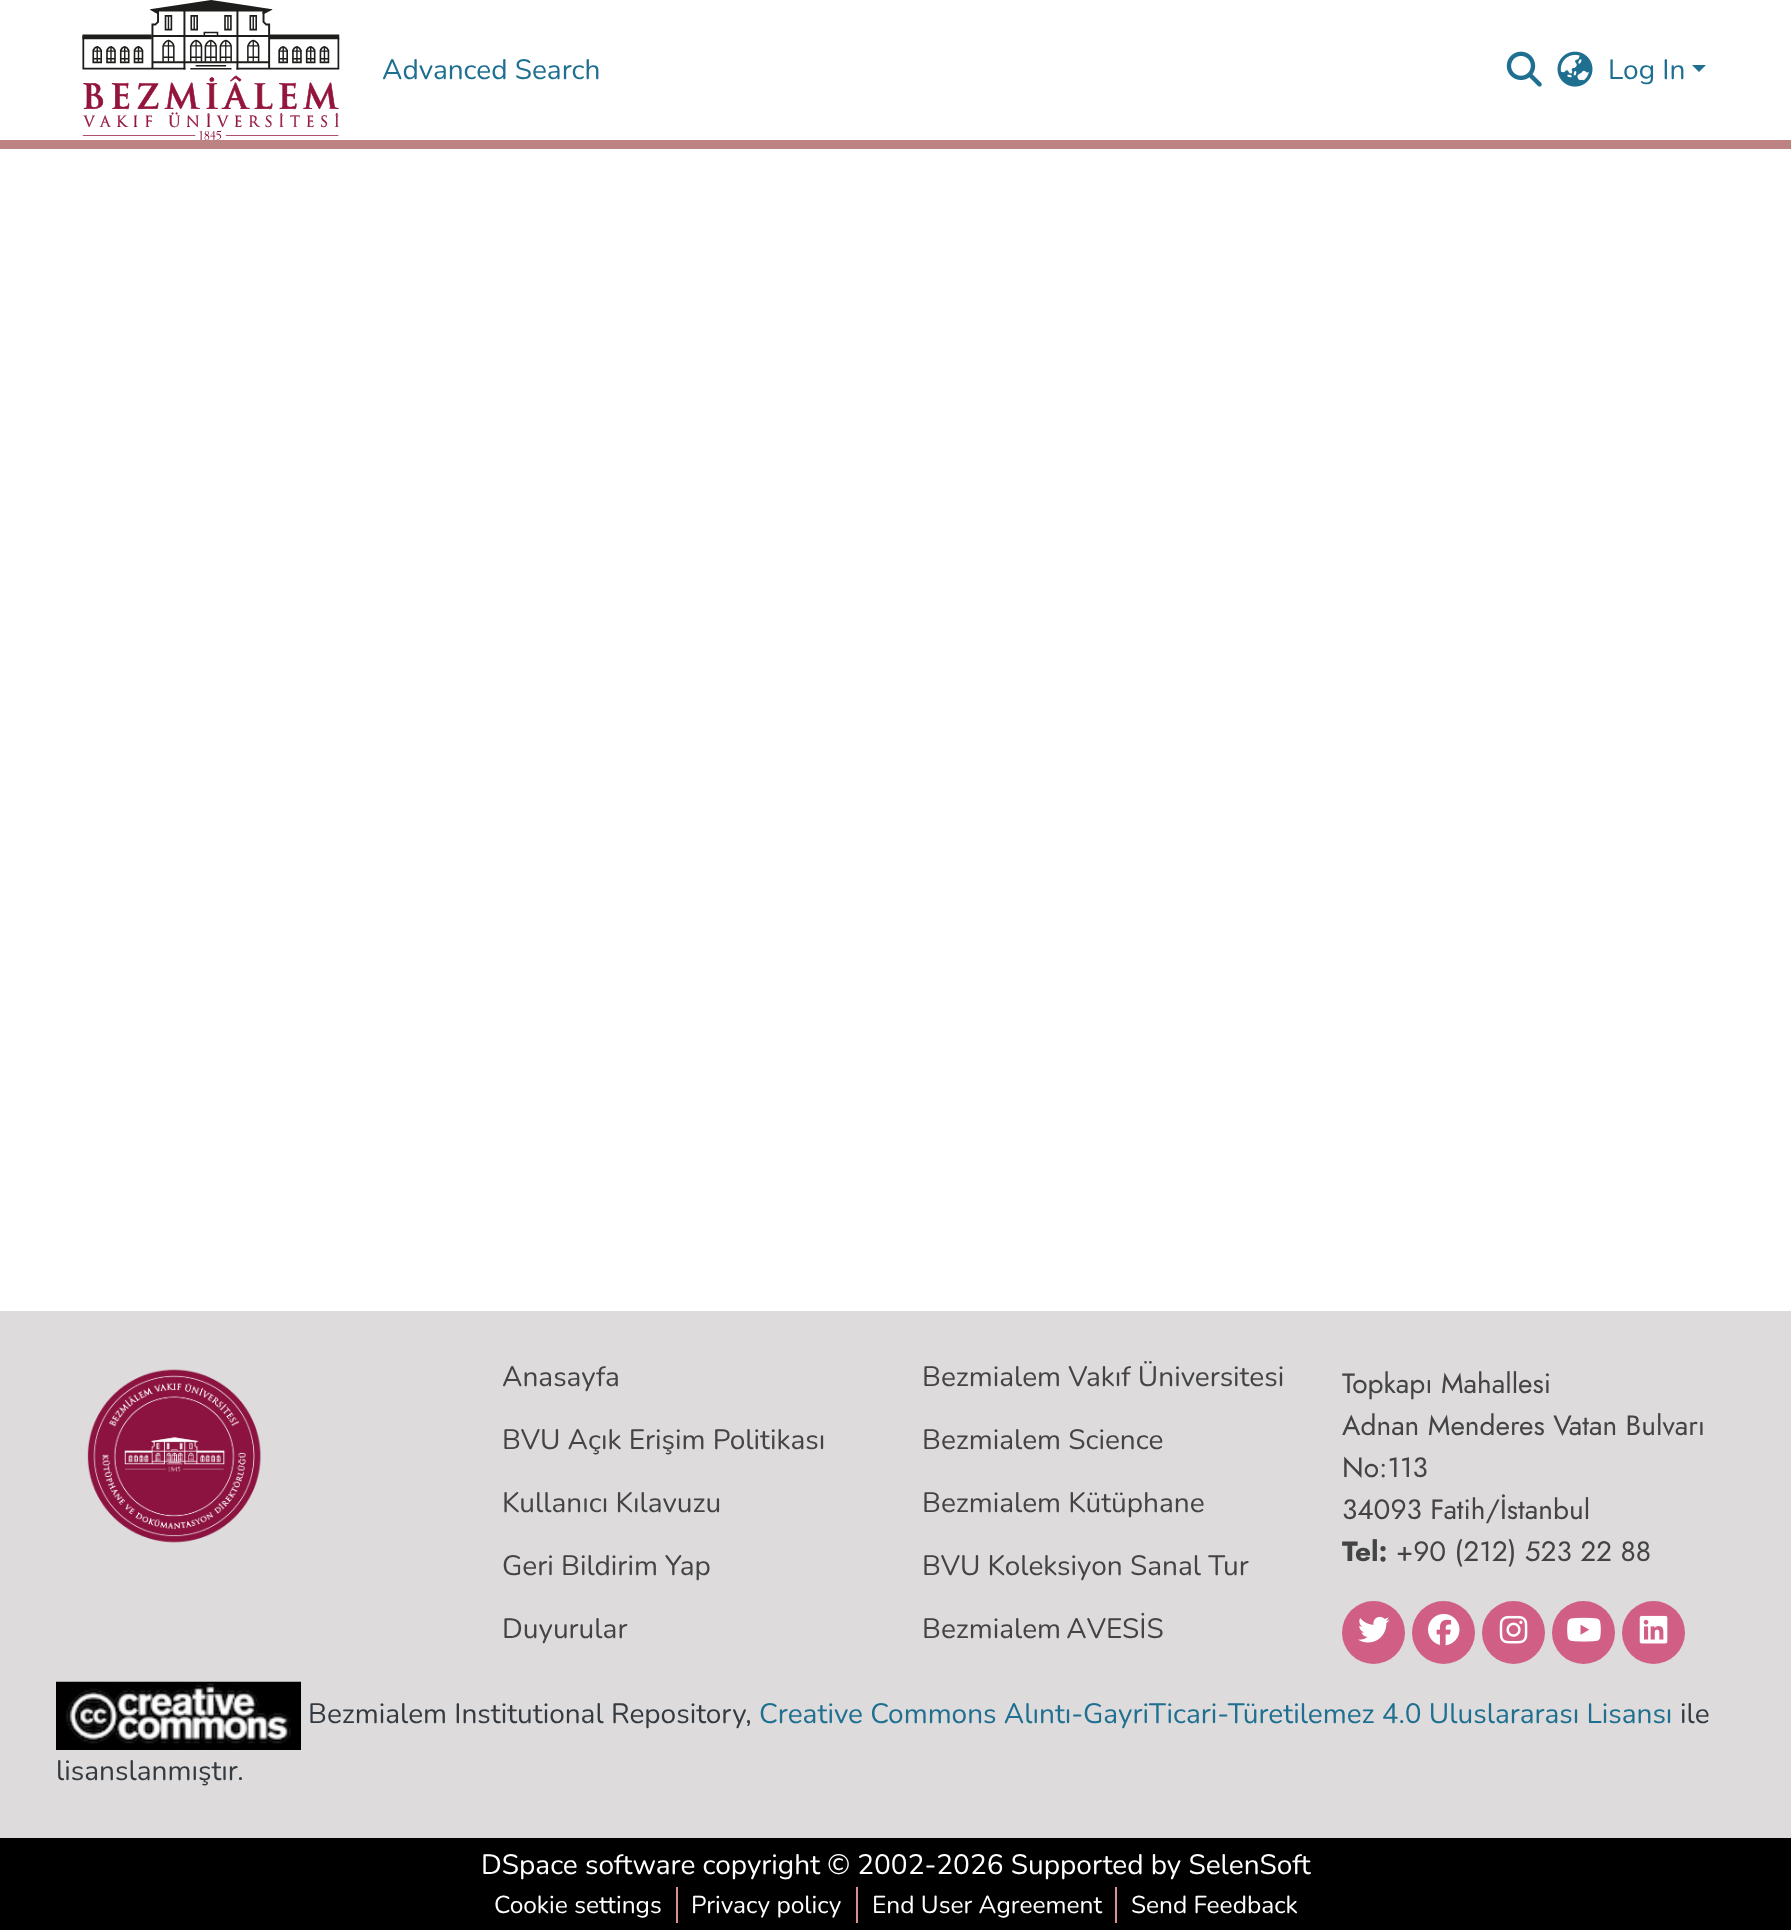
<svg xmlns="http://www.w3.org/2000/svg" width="1791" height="1930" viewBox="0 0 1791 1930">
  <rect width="100%" height="100%" fill="#fff"/>
  <path d="M0 140h1791v9H0z" fill="#bd8383"/>
  <image x="82" y="0" width="258" height="140" href="img/1.png"/>
  <image x="1506" y="51" width="36" height="36" href="img/2.png"/>
  <image x="1557" y="51" width="36" height="36" href="img/3.png"/>
  <path d="M1692 65H1706L1699 72Z" fill="#1e6f90"/>
  <path d="M0 1838h1791v92H0z" fill="#000"/>
  <path d="M0 1311h1791v527H0z" fill="#dddbdc"/>
  <image x="87" y="1369" width="174" height="174" href="img/4.png"/>
  <circle cx="1373.5" cy="1632.5" r="31.5" fill="#d15f85"/>
  <image x="1358" y="1616" width="32" height="27" href="img/5.png"/>
  <circle cx="1443.5" cy="1632.5" r="31.5" fill="#d15f85"/>
  <image x="1428" y="1613" width="32" height="33" href="img/6.png"/>
  <circle cx="1513.5" cy="1632.5" r="31.5" fill="#d15f85"/>
  <image x="1499" y="1615" width="29" height="29" href="img/7.png"/>
  <circle cx="1583.5" cy="1632.5" r="31.5" fill="#d15f85"/>
  <image x="1567" y="1617" width="34" height="25" href="img/8.png"/>
  <circle cx="1653.5" cy="1632.5" r="31.5" fill="#d15f85"/>
  <image x="1639" y="1615" width="29" height="29" href="img/9.png"/>
  <image x="56" y="1681" width="245" height="69" href="img/10.png"/>
  <path d="M676 1887h2v36H676z" fill="#db9090"/>
  <path d="M856 1887h2v36H856z" fill="#db9090"/>
  <path d="M1115 1887h2v36H1115z" fill="#db9090"/>
  <g font-family="Nunito" font-size="28" fill="#1e6f90">
    <text x="382" y="79">Advanced Search</text>
    <text x="1608" y="79">Log In</text>
  </g>
  <g font-family="Nunito" font-size="28" fill="#444">
    <text x="502" y="1386">Anasayfa</text>
    <text x="502" y="1449">BVU Açık Erişim Politikası</text>
    <text x="502" y="1512">Kullanıcı Kılavuzu</text>
    <text x="502" y="1575">Geri Bildirim Yap</text>
    <text x="502" y="1638">Duyurular</text>
    <text x="922" y="1386">Bezmialem Vakıf Üniversitesi</text>
    <text x="922" y="1449">Bezmialem Science</text>
    <text x="922" y="1512">Bezmialem Kütüphane</text>
    <text x="922" y="1575">BVU Koleksiyon Sanal Tur</text>
    <text x="922" y="1638" word-spacing="-2">Bezmialem AVESİS</text>
  </g>
  <g font-family="Jost" font-size="28" fill="#444">
    <text x="1342" y="1393">Topkapı Mahallesi</text>
    <text x="1342" y="1435">Adnan Menderes Vatan Bulvarı</text>
    <text x="1342" y="1477">No:113</text>
    <text x="1342" y="1519">34093 Fatih/İstanbul</text>
  </g>
  <text x="1342" y="1561" font-family="Jost" font-size="28" font-weight="bold" fill="#444">Tel:</text>
  <text x="1396" y="1561" font-family="Jost" font-size="28" fill="#444">+90 (212) 523 22 88</text>
  <text x="308" y="1723" font-family="Nunito" font-size="28" fill="#343a40">Bezmialem Institutional Repository,</text>
  <text x="759" y="1723" font-family="Nunito" font-size="28" fill="#1e6f90">Creative Commons Alıntı-GayriTicari-Türetilemez 4.0 Uluslararası Lisansı</text>
  <g font-family="Nunito" font-size="28" fill="#343a40">
    <text x="1680" y="1723">ile</text>
    <text x="56" y="1780">lisanslanmıştır.</text>
  </g>
  <text x="481" y="1874" font-family="Nunito" font-size="28" fill="#fff">DSpace software copyright © 2002-2026 Supported by SelenSoft</text>
  <g font-family="Nunito" font-size="24.5" fill="#fff">
    <text x="494" y="1913">Cookie settings</text>
    <text x="691" y="1913">Privacy policy</text>
    <text x="872" y="1913">End User Agreement</text>
    <text x="1131" y="1913">Send Feedback</text>
  </g>
</svg>
